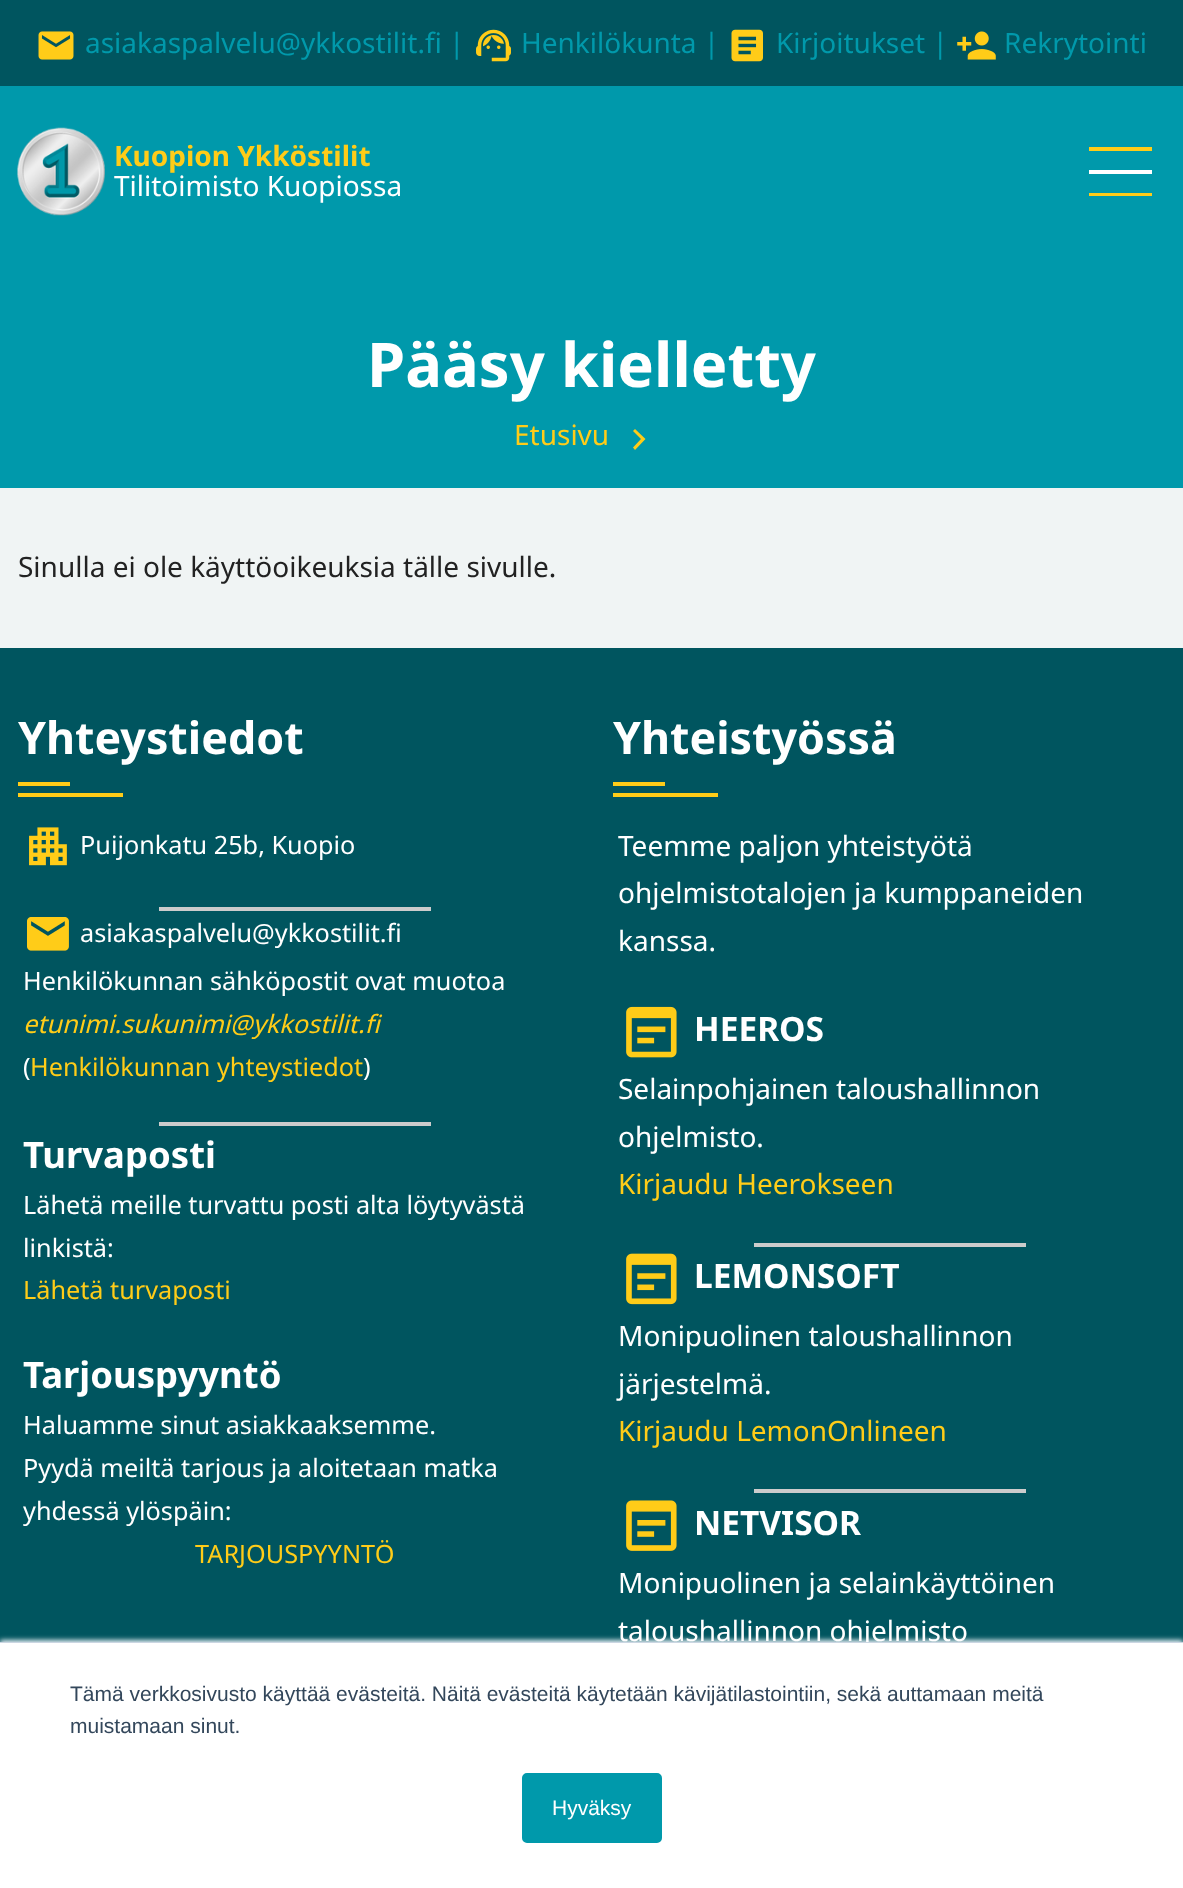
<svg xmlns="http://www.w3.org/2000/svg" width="1183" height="1888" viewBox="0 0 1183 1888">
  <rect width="100%" height="100%" fill="#f0f4f4"/>
  <path d="M0 0h1183v86H0z" fill="#00555f"/>
  <image x="38" y="31" width="36" height="29" href="img/1.png"/>
  <image x="476" y="29" width="35" height="33" href="img/2.png"/>
  <image x="731" y="29" width="32" height="33" href="img/3.png"/>
  <image x="957" y="31" width="39" height="29" href="img/4.png"/>
  <path d="M0 86h1183v402H0z" fill="#0099ab"/>
  <image x="17" y="127" width="88" height="89" href="img/5.png"/>
  <path d="M1089 147h63v4H1089z" fill="#ffcc18"/>
  <path d="M1089 170h63v4H1089z" fill="#fff"/>
  <path d="M1089 193h63v3H1089z" fill="#ffcc18"/>
  <path d="M635 429L645.5 439L635 450L633 447.5L641 439L633 431Z" fill="#ffcc18"/>
  <path d="M0 648h1183v994H0z" fill="#00555f"/>
  <path d="M18 782h52v4H18z" fill="#ffcc18"/>
  <path d="M18 793h105v4H18z" fill="#ffcc18"/>
  <image x="29" y="827" width="38" height="39" href="img/6.png"/>
  <path d="M159 907h272v4H159z" fill="#ccc"/>
  <image x="27" y="917" width="42" height="34" href="img/7.png"/>
  <path d="M159 1122h272v4H159z" fill="#ccc"/>
  <path d="M613 782h52v4H613z" fill="#ffcc18"/>
  <path d="M613 793h105v4H613z" fill="#ffcc18"/>
  <image x="626" y="1006" width="51" height="52" href="img/8.png"/>
  <path d="M754 1243h272v4H754z" fill="#ccc"/>
  <image x="626" y="1253" width="51" height="52" href="img/9.png"/>
  <path d="M754 1489h272v4H754z" fill="#ccc"/>
  <image x="626" y="1500" width="51" height="51" href="img/10.png"/>
  <path d="M0 1640h1183v247H0z" fill="#eaf0f6" filter="blur(2.5px)"/>
  <path d="M0 1643h1183v245H0z" fill="#fff"/>
  <rect x="523" y="1774" width="138" height="68" rx="4" fill="#0099ab" stroke="#0099ab" stroke-width="2"/>
  <g font-family="Noto Sans" font-size="28" fill="#0099ab">
    <text x="85" y="53">asiakaspalvelu@ykkostilit.fi |</text>
    <text x="521" y="53">Henkilökunta |</text>
    <text x="776" y="53">Kirjoitukset |</text>
    <text x="1004" y="53">Rekrytointi</text>
  </g>
  <text x="114" y="166" font-family="Noto Sans" font-size="28" font-weight="bold" fill="#ffcc18">Kuopion Ykköstilit</text>
  <text x="114" y="196" font-family="Noto Sans" font-size="28" fill="#fff">Tilitoimisto Kuopiossa</text>
  <text x="367" y="387" font-family="Noto Sans" font-size="61.5" font-weight="bold" fill="#fff">Pääsy kielletty</text>
  <text x="514" y="445" font-family="Noto Sans" font-size="28" fill="#ffcc18">Etusivu</text>
  <text x="18" y="577" font-family="Noto Sans" font-size="28" fill="#222">Sinulla ei ole käyttöoikeuksia tälle sivulle.</text>
  <text x="18" y="754" font-family="Noto Sans" font-size="44.75" font-weight="bold" fill="#fff">Yhteystiedot</text>
  <g font-family="Noto Sans" font-size="25.25" fill="#fff">
    <text x="80" y="854">Puijonkatu 25b, Kuopio</text>
    <text x="80" y="942">asiakaspalvelu@ykkostilit.fi</text>
    <text x="23" y="990">Henkilökunnan sähköpostit ovat muotoa</text>
  </g>
  <text x="23" y="1033" font-family="Noto Sans" font-size="25.25" font-style="italic" fill="#ffcc18">etunimi.sukunimi@ykkostilit.fi</text>
  <text x="23" y="1076" font-family="Noto Sans" font-size="25.25" fill="#fff">(</text>
  <text x="30" y="1076" font-family="Noto Sans" font-size="25.25" fill="#ffcc18">Henkilökunnan yhteystiedot</text>
  <text x="363" y="1076" font-family="Noto Sans" font-size="25.25" fill="#fff">)</text>
  <text x="23" y="1168" font-family="Noto Sans" font-size="36.5" font-weight="bold" fill="#fff">Turvaposti</text>
  <g font-family="Noto Sans" font-size="25.25" fill="#fff">
    <text x="23" y="1214">Lähetä meille turvattu posti alta löytyvästä</text>
    <text x="23" y="1257">linkistä:</text>
  </g>
  <text x="23" y="1299" font-family="Noto Sans" font-size="25.25" fill="#ffcc18">Lähetä turvaposti</text>
  <text x="23" y="1388" font-family="Noto Sans" font-size="36.5" font-weight="bold" fill="#fff">Tarjouspyyntö</text>
  <g font-family="Noto Sans" font-size="25.25" fill="#fff">
    <text x="23" y="1434">Haluamme sinut asiakkaaksemme.</text>
    <text x="23" y="1477">Pyydä meiltä tarjous ja aloitetaan matka</text>
    <text x="23" y="1520">yhdessä ylöspäin:</text>
  </g>
  <text x="195" y="1563" font-family="Noto Sans" font-size="25.25" fill="#ffcc18">TARJOUSPYYNTÖ</text>
  <text x="613" y="754" font-family="Noto Sans" font-size="44.75" font-weight="bold" fill="#fff">Yhteistyössä</text>
  <g font-family="Noto Sans" font-size="28" fill="#fff">
    <text x="618" y="856">Teemme paljon yhteistyötä</text>
    <text x="618" y="903">ohjelmistotalojen ja kumppaneiden</text>
    <text x="618" y="951">kanssa.</text>
  </g>
  <text x="694" y="1041" font-family="Noto Sans" font-size="33.5" font-weight="bold" fill="#fff">HEEROS</text>
  <g font-family="Noto Sans" font-size="28" fill="#fff">
    <text x="618" y="1099">Selainpohjainen taloushallinnon</text>
    <text x="618" y="1147">ohjelmisto.</text>
  </g>
  <text x="618" y="1194" font-family="Noto Sans" font-size="28" fill="#ffcc18">Kirjaudu Heerokseen</text>
  <text x="694" y="1288" font-family="Noto Sans" font-size="33.5" font-weight="bold" fill="#fff">LEMONSOFT</text>
  <g font-family="Noto Sans" font-size="28" fill="#fff">
    <text x="618" y="1346">Monipuolinen taloushallinnon</text>
    <text x="618" y="1394">järjestelmä.</text>
  </g>
  <text x="618" y="1441" font-family="Noto Sans" font-size="28" fill="#ffcc18">Kirjaudu LemonOnlineen</text>
  <text x="694" y="1535" font-family="Noto Sans" font-size="33.5" font-weight="bold" fill="#fff">NETVISOR</text>
  <g font-family="Noto Sans" font-size="28" fill="#fff">
    <text x="618" y="1593">Monipuolinen ja selainkäyttöinen</text>
    <text x="618" y="1641">taloushallinnon ohjelmisto</text>
  </g>
  <path d="M0 1642h1183v1H0z" fill="#cbd6e2"/>
  <g font-family="Liberation Sans" font-size="21" fill="#33475b">
    <text x="70" y="1701">Tämä verkkosivusto käyttää evästeitä. Näitä evästeitä käytetään kävijätilastointiin, sekä auttamaan meitä</text>
    <text x="70" y="1733">muistamaan sinut.</text>
  </g>
  <text x="552" y="1815" font-family="Liberation Sans" font-size="21" fill="#fff">Hyväksy</text>
</svg>
